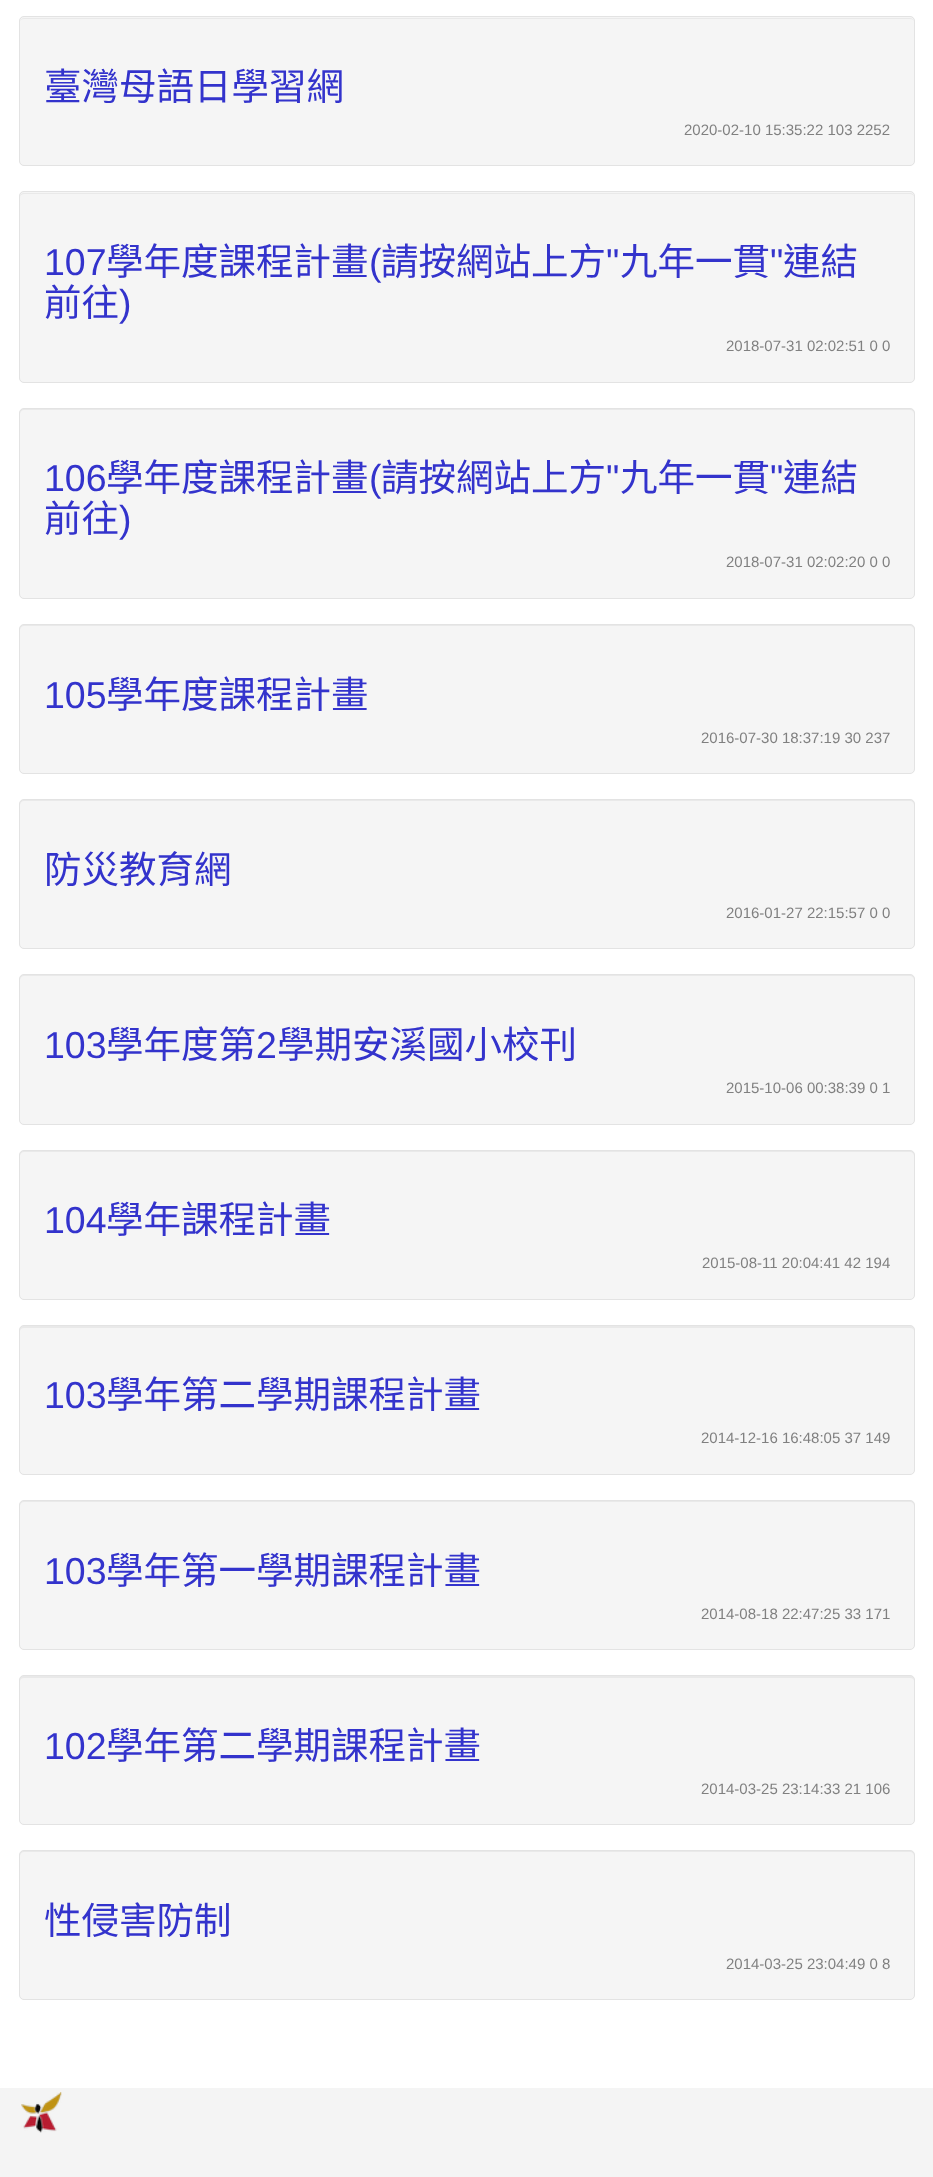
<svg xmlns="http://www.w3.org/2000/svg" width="933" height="2177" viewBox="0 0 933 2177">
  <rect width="100%" height="100%" fill="#fff"/>
  <rect x="19" y="16" width="896" height="150" rx="5" fill="#f5f5f5"/>
  <path d="M24 19H910C912 19 914 20 914 22C914 20 912 18 910 18H24C22 18 20 20 20 22C20 20 22 19 24 19Z" fill="#e9e9e9"/>
  <rect x="19.5" y="16.5" width="895" height="149" rx="4.5" fill="none" stroke="#e3e3e3"/>
  <rect x="19" y="191" width="896" height="192" rx="5" fill="#f5f5f5"/>
  <path d="M24 194H910C912 194 914 195 914 198C914 195 913 193 910 193H24C21 193 20 195 20 198C20 195 22 194 24 194Z" fill="#e9e9e9"/>
  <rect x="19.5" y="191.5" width="895" height="191" rx="4.5" fill="none" stroke="#e3e3e3"/>
  <rect x="19" y="408" width="896" height="191" rx="5" fill="#f5f5f5"/>
  <path d="M24 410H910C912 410 914 412 914 414C914 411 913 409 910 409H24C21 409 20 411 20 414C20 412 22 410 24 410Z" fill="#e9e9e9"/>
  <rect x="19.5" y="408.5" width="895" height="190" rx="4.5" fill="none" stroke="#e3e3e3"/>
  <rect x="19" y="624" width="896" height="150" rx="5" fill="#f5f5f5"/>
  <path d="M24 626H910C912 626 914 628 914 630C914 627 913 625 910 625H24C21 625 20 627 20 630C20 628 22 626 24 626Z" fill="#e9e9e9"/>
  <rect x="19.5" y="624.5" width="895" height="149" rx="4.5" fill="none" stroke="#e3e3e3"/>
  <rect x="19" y="799" width="896" height="150" rx="5" fill="#f5f5f5"/>
  <path d="M24 801H910C912 801 914 803 914 805C914 802 913 800 910 800H24C21 800 20 802 20 805C20 803 22 801 24 801Z" fill="#e9e9e9"/>
  <rect x="19.5" y="799.5" width="895" height="149" rx="4.5" fill="none" stroke="#e3e3e3"/>
  <rect x="19" y="974" width="896" height="151" rx="5" fill="#f5f5f5"/>
  <path d="M24 976H910C912 976 914 978 914 980C914 977 913 975 910 975H24C21 975 20 977 20 980C20 978 22 976 24 976Z" fill="#e9e9e9"/>
  <rect x="19.5" y="974.5" width="895" height="150" rx="4.5" fill="none" stroke="#e3e3e3"/>
  <rect x="19" y="1150" width="896" height="150" rx="5" fill="#f5f5f5"/>
  <path d="M24 1152H910C912 1152 914 1154 914 1156C914 1153 913 1151 910 1151H24C21 1151 20 1153 20 1156C20 1154 22 1152 24 1152Z" fill="#e9e9e9"/>
  <rect x="19.5" y="1150.5" width="895" height="149" rx="4.5" fill="none" stroke="#e3e3e3"/>
  <rect x="19" y="1325" width="896" height="150" rx="5" fill="#f5f5f5"/>
  <path d="M24 1328H910C912 1328 914 1329 914 1331C914 1328 913 1326 910 1326H24C21 1326 20 1328 20 1331C20 1329 22 1328 24 1328Z" fill="#e9e9e9"/>
  <rect x="19.5" y="1325.5" width="895" height="149" rx="4.5" fill="none" stroke="#e3e3e3"/>
  <rect x="19" y="1500" width="896" height="150" rx="5" fill="#f5f5f5"/>
  <path d="M24 1502H910C912 1502 914 1504 914 1506C914 1503 913 1501 910 1501H24C21 1501 20 1503 20 1506C20 1504 22 1502 24 1502Z" fill="#e9e9e9"/>
  <rect x="19.5" y="1500.5" width="895" height="149" rx="4.5" fill="none" stroke="#e3e3e3"/>
  <rect x="19" y="1675" width="896" height="150" rx="5" fill="#f5f5f5"/>
  <path d="M24 1678H910C912 1678 914 1679 914 1681C914 1678 913 1676 910 1676H24C21 1676 20 1678 20 1681C20 1679 22 1678 24 1678Z" fill="#e9e9e9"/>
  <rect x="19.5" y="1675.5" width="895" height="149" rx="4.5" fill="none" stroke="#e3e3e3"/>
  <rect x="19" y="1850" width="896" height="150" rx="5" fill="#f5f5f5"/>
  <path d="M24 1852H910C912 1852 914 1854 914 1856C914 1853 913 1851 910 1851H24C21 1851 20 1853 20 1856C20 1854 22 1852 24 1852Z" fill="#e9e9e9"/>
  <rect x="19.5" y="1850.5" width="895" height="149" rx="4.5" fill="none" stroke="#e3e3e3"/>
  <path d="M0 2088h933v89H0z" fill="#f4f4f4"/>
  <image x="21" y="2092" width="41" height="41" href="img/1.png"/>
  <text x="44" y="100" font-family="Noto Sans CJK TC" font-size="37.5" fill="#33c">臺灣母語日學習網</text>
  <text x="684" y="135" font-family="Liberation Sans" font-size="15" fill="#808080">2020-02-10 15:35:22 103 2252</text>
  <text x="44" y="275" font-family="Liberation Sans" font-size="37.5" fill="#33c">107</text>
  <text x="106" y="275" font-family="Noto Sans CJK TC" font-size="37.5" fill="#33c">學年度課程計畫</text>
  <text x="369" y="275" font-family="Liberation Sans" font-size="37.5" fill="#33c">(</text>
  <text x="381" y="275" font-family="Noto Sans CJK TC" font-size="37.5" fill="#33c">請按網站上方</text>
  <text x="606" y="275" font-family="Liberation Sans" font-size="37.5" fill="#33c">"</text>
  <text x="620" y="275" font-family="Noto Sans CJK TC" font-size="37.5" fill="#33c">九年一貫</text>
  <text x="770" y="275" font-family="Liberation Sans" font-size="37.5" fill="#33c">"</text>
  <g font-family="Noto Sans CJK TC" font-size="37.5" fill="#33c">
    <text x="783" y="275">連結</text>
    <text x="44" y="316">前往</text>
  </g>
  <text x="119" y="316" font-family="Liberation Sans" font-size="37.5" fill="#33c">)</text>
  <text x="726" y="351" font-family="Liberation Sans" font-size="15" fill="#808080">2018-07-31 02:02:51 0 0</text>
  <text x="44" y="491" font-family="Liberation Sans" font-size="37.5" fill="#33c">106</text>
  <text x="106" y="491" font-family="Noto Sans CJK TC" font-size="37.5" fill="#33c">學年度課程計畫</text>
  <text x="369" y="491" font-family="Liberation Sans" font-size="37.5" fill="#33c">(</text>
  <text x="381" y="491" font-family="Noto Sans CJK TC" font-size="37.5" fill="#33c">請按網站上方</text>
  <text x="606" y="491" font-family="Liberation Sans" font-size="37.5" fill="#33c">"</text>
  <text x="620" y="491" font-family="Noto Sans CJK TC" font-size="37.5" fill="#33c">九年一貫</text>
  <text x="770" y="491" font-family="Liberation Sans" font-size="37.5" fill="#33c">"</text>
  <g font-family="Noto Sans CJK TC" font-size="37.5" fill="#33c">
    <text x="783" y="491">連結</text>
    <text x="44" y="532">前往</text>
  </g>
  <text x="119" y="532" font-family="Liberation Sans" font-size="37.5" fill="#33c">)</text>
  <text x="726" y="567" font-family="Liberation Sans" font-size="15" fill="#808080">2018-07-31 02:02:20 0 0</text>
  <text x="44" y="708" font-family="Liberation Sans" font-size="37.5" fill="#33c">105</text>
  <text x="106" y="708" font-family="Noto Sans CJK TC" font-size="37.5" fill="#33c">學年度課程計畫</text>
  <text x="701" y="743" font-family="Liberation Sans" font-size="15" fill="#808080">2016-07-30 18:37:19 30 237</text>
  <text x="44" y="883" font-family="Noto Sans CJK TC" font-size="37.5" fill="#33c">防災教育網</text>
  <text x="726" y="918" font-family="Liberation Sans" font-size="15" fill="#808080">2016-01-27 22:15:57 0 0</text>
  <text x="44" y="1058" font-family="Liberation Sans" font-size="37.5" fill="#33c">103</text>
  <text x="106" y="1058" font-family="Noto Sans CJK TC" font-size="37.5" fill="#33c">學年度第</text>
  <text x="256" y="1058" font-family="Liberation Sans" font-size="37.5" fill="#33c">2</text>
  <text x="277" y="1058" font-family="Noto Sans CJK TC" font-size="37.5" fill="#33c">學期安溪國小校刊</text>
  <text x="726" y="1093" font-family="Liberation Sans" font-size="15" fill="#808080">2015-10-06 00:38:39 0 1</text>
  <text x="44" y="1233" font-family="Liberation Sans" font-size="37.5" fill="#33c">104</text>
  <text x="106" y="1233" font-family="Noto Sans CJK TC" font-size="37.5" fill="#33c">學年課程計畫</text>
  <text x="702" y="1268" font-family="Liberation Sans" font-size="15" fill="#808080">2015-08-11 20:04:41 42 194</text>
  <text x="44" y="1408" font-family="Liberation Sans" font-size="37.5" fill="#33c">103</text>
  <text x="106" y="1408" font-family="Noto Sans CJK TC" font-size="37.5" fill="#33c">學年第二學期課程計畫</text>
  <text x="701" y="1443" font-family="Liberation Sans" font-size="15" fill="#808080">2014-12-16 16:48:05 37 149</text>
  <text x="44" y="1584" font-family="Liberation Sans" font-size="37.5" fill="#33c">103</text>
  <text x="106" y="1584" font-family="Noto Sans CJK TC" font-size="37.5" fill="#33c">學年第一學期課程計畫</text>
  <text x="701" y="1619" font-family="Liberation Sans" font-size="15" fill="#808080">2014-08-18 22:47:25 33 171</text>
  <text x="44" y="1759" font-family="Liberation Sans" font-size="37.5" fill="#33c">102</text>
  <text x="106" y="1759" font-family="Noto Sans CJK TC" font-size="37.5" fill="#33c">學年第二學期課程計畫</text>
  <text x="701" y="1794" font-family="Liberation Sans" font-size="15" fill="#808080">2014-03-25 23:14:33 21 106</text>
  <text x="44" y="1934" font-family="Noto Sans CJK TC" font-size="37.5" fill="#33c">性侵害防制</text>
  <text x="726" y="1969" font-family="Liberation Sans" font-size="15" fill="#808080">2014-03-25 23:04:49 0 8</text>
</svg>
